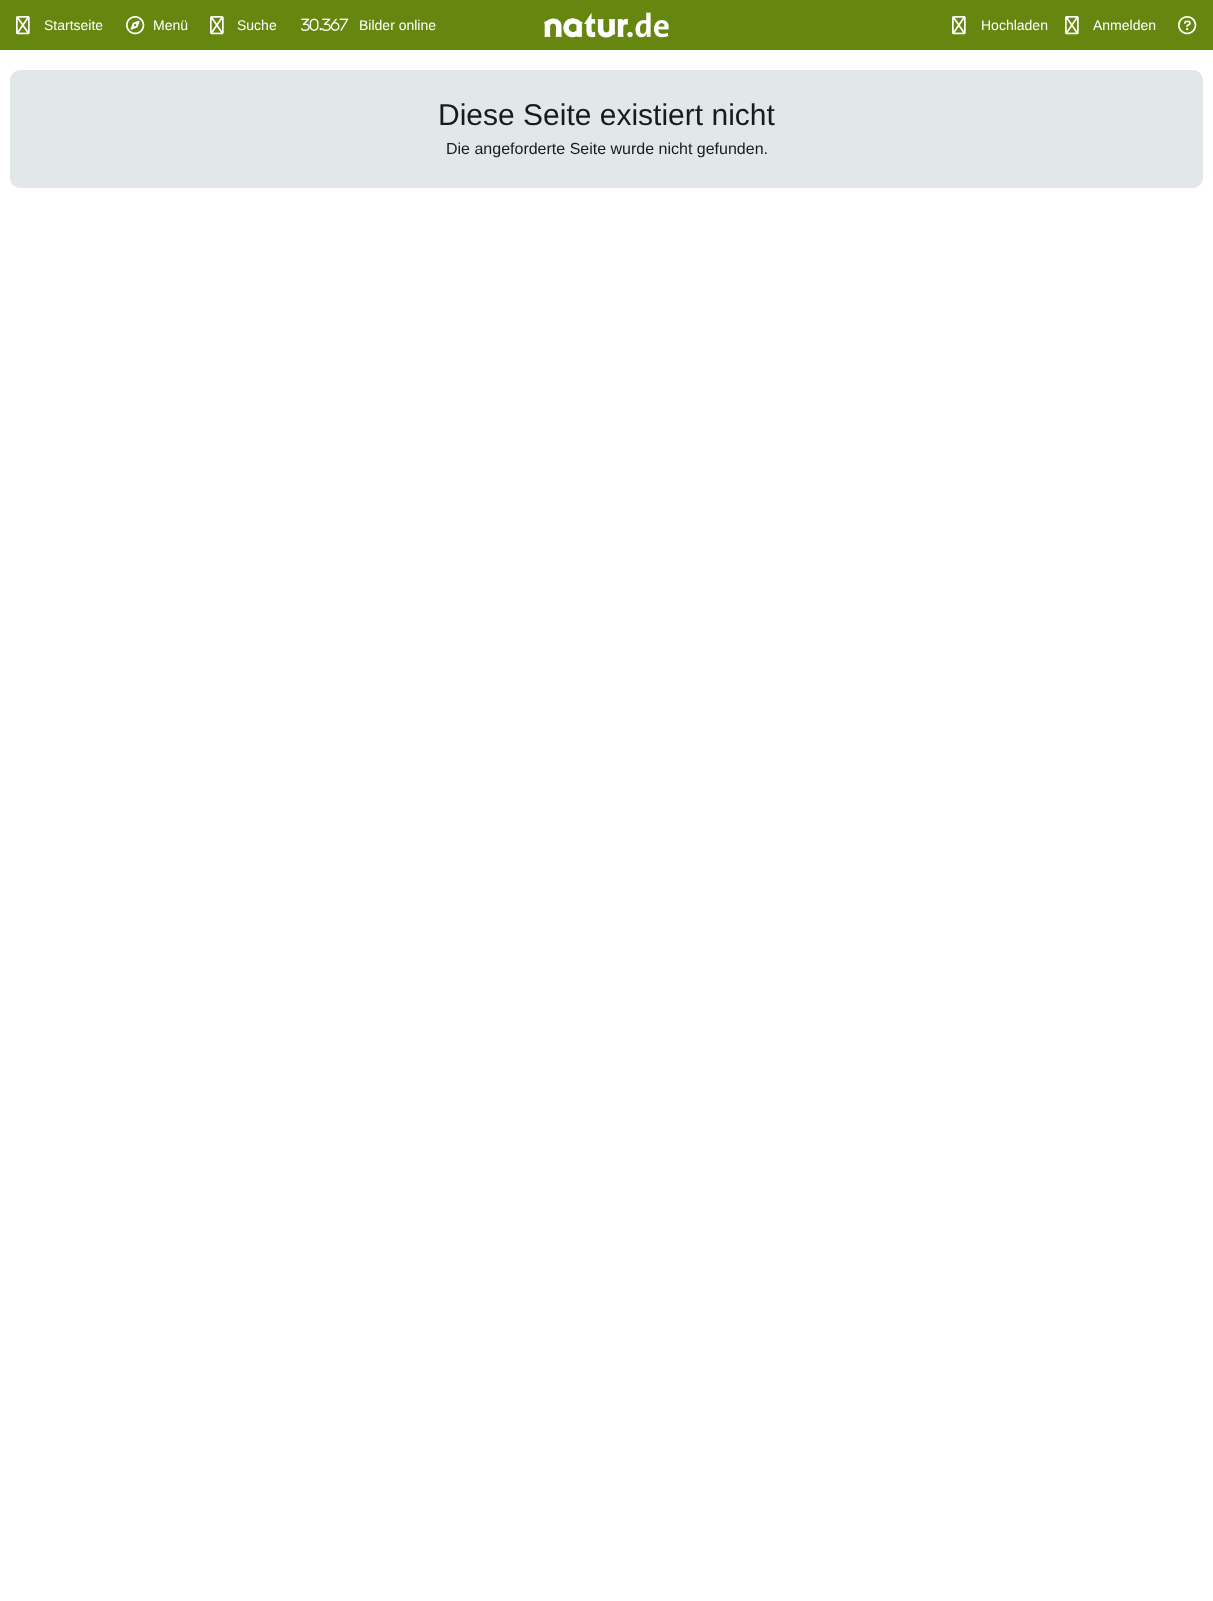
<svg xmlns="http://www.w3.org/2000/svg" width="1213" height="1601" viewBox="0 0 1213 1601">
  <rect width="100%" height="100%" fill="#fff"/>
  <path d="M0 0h1213v50H0z" fill="#65870f"/>
  <image x="544" y="12" width="125" height="26" href="img/1.png"/>
  <image x="16" y="16" width="14" height="19" href="img/2.png"/>
  <image x="126" y="16" width="19" height="19" href="img/3.png"/>
  <image x="210" y="16" width="14" height="19" href="img/2.png"/>
  <image x="301" y="18" width="18" height="13" href="img/4.png"/>
  <image x="322" y="18" width="27" height="13" href="img/5.png"/>
  <image x="952" y="16" width="14" height="19" href="img/2.png"/>
  <image x="1065" y="16" width="14" height="19" href="img/2.png"/>
  <image x="1178" y="16" width="19" height="19" href="img/6.png"/>
  <rect x="10" y="70" width="1193" height="118" rx="10" fill="#e2e8e9"/>
  <g font-family="Liberation Sans" font-size="14" fill="#fff">
    <text x="44" y="30">Startseite</text>
    <text x="153" y="30">Menü</text>
    <text x="237" y="30">Suche</text>
  </g>
  <text x="319" y="30" font-family="Liberation Serif" font-size="14" font-weight="bold" fill="#fff">.</text>
  <g font-family="Liberation Sans" font-size="14" fill="#fff">
    <text x="359" y="30">Bilder online</text>
    <text x="981" y="30">Hochladen</text>
    <text x="1093" y="30">Anmelden</text>
  </g>
  <text x="438" y="125" font-family="Liberation Sans" font-size="30" fill="#161c1d">Diese Seite existiert nicht</text>
  <text x="446" y="154" font-family="Liberation Sans" font-size="16" fill="#161c1d">Die angeforderte Seite wurde nicht gefunden.</text>
</svg>
